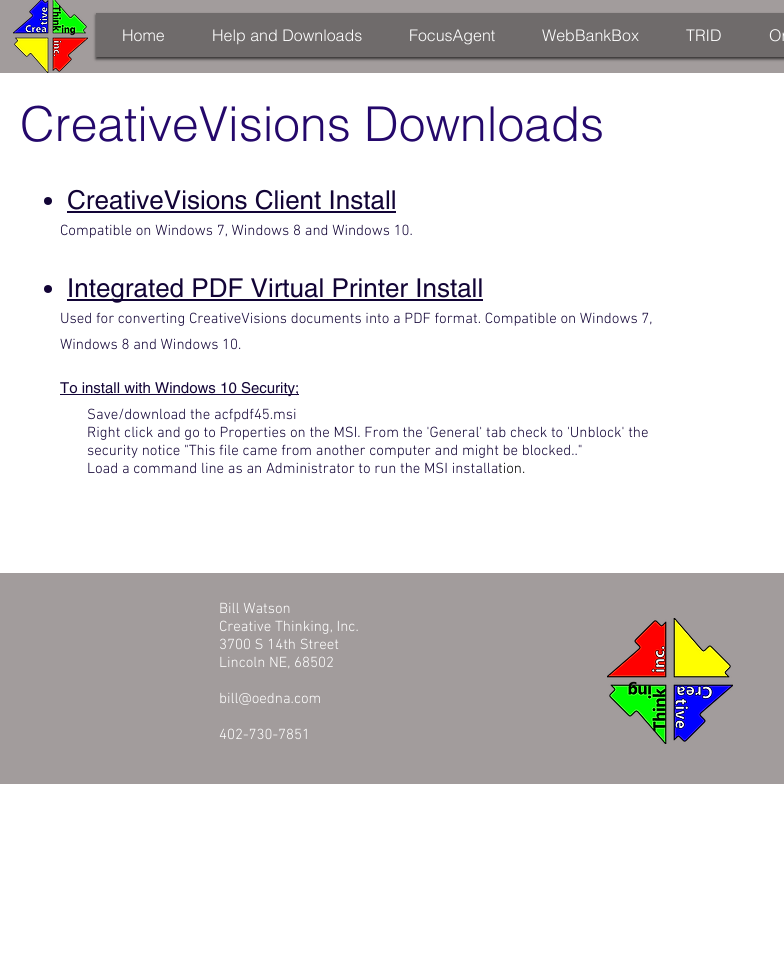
import math
import cairo

surface = cairo.ImageSurface(cairo.FORMAT_RGB24, 784, 976)
ctx = cairo.Context(surface)
options = cairo.FontOptions()
options.set_hint_metrics(cairo.HINT_METRICS_OFF)
options.set_hint_style(cairo.HINT_STYLE_NONE)
ctx.set_font_options(options)
ctx.set_miter_limit(4)


def round_rect(x, y, w, h, r):
    ctx.new_sub_path()
    for i, (u, v) in enumerate([(x + w - r, y + h - r), (x + r, y + h - r), (x + r, y + r), (x + w - r, y + r)]):
        ctx.arc(u, v, r, i * math.pi / 2, (i + 1) * math.pi / 2)
    ctx.close_path()


def shadow(x, y, w, h, r, blur, alpha):
    ctx.push_group_with_content(cairo.CONTENT_ALPHA)
    ctx.set_operator(cairo.OPERATOR_SOURCE)
    for i in range(15, -16, -2):
        e = blur * i / 6
        if min(w, h) + 2 * e > 0:
            ctx.set_source_rgba(0, 0, 0, alpha * math.erfc((i - 1) / 8.5) / 2)
            round_rect(x - e, y - e, w + 2 * e, h + 2 * e, max(0, min(r + e + blur * .6, min(w, h) / 2 + e)))
            ctx.fill()
    ctx.mask(ctx.pop_group())


def picture(path, x, y, w, h):
    ctx.save()
    ctx.set_source_surface(cairo.ImageSurface.create_from_png(path), x, y)
    ctx.rectangle(x, y, w, h)
    ctx.fill()
    ctx.restore()


ctx.set_source_rgb(1, 1, 1)
ctx.paint()
ctx.set_source_rgb(0.635, 0.612, 0.612)
ctx.rectangle(0, 0, 784, 73)
ctx.fill()
picture("img1.png", 13, 0, 75, 73)
ctx.set_source_rgb(0, 0, 0)
shadow(96, 15, 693, 44, 0, 1.5, 0.7)
ctx.set_source_rgb(0.435, 0.42, 0.42)
ctx.rectangle(96, 13, 688, 44)
ctx.fill()
ctx.select_font_face("helvetica Light")
ctx.set_font_size(16)
ctx.set_source_rgb(1, 1, 1)
ctx.move_to(122, 41)
ctx.show_text("Home")
ctx.move_to(212, 41)
ctx.show_text("Help and Downloads")
ctx.move_to(409, 41)
ctx.show_text("FocusAgent")
ctx.move_to(542, 41)
ctx.show_text("WebBankBox")
ctx.move_to(686, 41)
ctx.show_text("TRID")
ctx.move_to(769, 41)
ctx.show_text("Or")
ctx.set_font_size(48)
ctx.set_source_rgb(0.141, 0.035, 0.42)
ctx.move_to(20, 141)
ctx.show_text("CreativeVisions Downloads")
ctx.set_source_rgb(0.071, 0.016, 0.212)
ctx.new_path()
ctx.arc(48, 201, 4, 0, 2 * math.pi)
ctx.fill()
ctx.select_font_face("helvetica")
ctx.set_font_size(26)
ctx.move_to(67, 209)
ctx.show_text("CreativeVisions Client Install")
ctx.rectangle(67, 211, 329, 2)
ctx.fill()
ctx.select_font_face("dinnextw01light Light")
ctx.set_font_size(15)
ctx.move_to(60, 235)
ctx.show_text("Compatible on Windows 7, Windows 8 and Windows 10.")
ctx.new_path()
ctx.arc(48, 289, 4, 0, 2 * math.pi)
ctx.fill()
ctx.rectangle(67, 299, 416, 2)
ctx.fill()
ctx.select_font_face("helvetica")
ctx.set_font_size(26)
ctx.move_to(67, 297)
ctx.show_text("Integrated PDF Virtual Printer Install")
ctx.select_font_face("dinnextw01light Light")
ctx.set_font_size(15)
ctx.move_to(60, 323)
ctx.show_text("Used for converting CreativeVisions documents into a PDF format. Compatible on Windows 7,")
ctx.move_to(60, 349)
ctx.show_text("Windows 8 and Windows 10.")
ctx.rectangle(60, 394, 239, 1)
ctx.fill()
ctx.select_font_face("helvetica")
ctx.move_to(60, 393)
ctx.show_text("To install with Windows 10 Security;")
ctx.select_font_face("dinnextw01light Light")
ctx.move_to(87, 419)
ctx.show_text("Save/download the acfpdf45.msi")
ctx.move_to(87, 437)
ctx.show_text("Right click and go to Properties on the MSI. From the 'General' tab check to 'Unblock' the")
ctx.move_to(87, 455)
ctx.show_text("security notice \"This file came from another computer and might be blocked..\"")
ctx.move_to(87, 473)
ctx.show_text("Load a command line as an Administrator to run the MSI installa")
ctx.set_source_rgb(0.008, 0.008, 0.008)
ctx.move_to(498, 473)
ctx.show_text("tion.")
ctx.set_source_rgb(0.635, 0.612, 0.612)
ctx.rectangle(0, 573, 784, 211)
ctx.fill()
ctx.set_source_rgb(1, 1, 1)
ctx.move_to(219, 613)
ctx.show_text("Bill Watson")
ctx.move_to(219, 631)
ctx.show_text("Creative Thinking, Inc.")
ctx.move_to(219, 649)
ctx.show_text("3700 S 14th Street")
ctx.move_to(219, 667)
ctx.show_text("Lincoln NE, 68502")
ctx.move_to(219, 703)
ctx.show_text("bill@oedna.com")
ctx.move_to(219, 739)
ctx.show_text("402-730-7851")
picture("img2.png", 607, 618, 126, 126)
surface.write_to_png("page.png")
